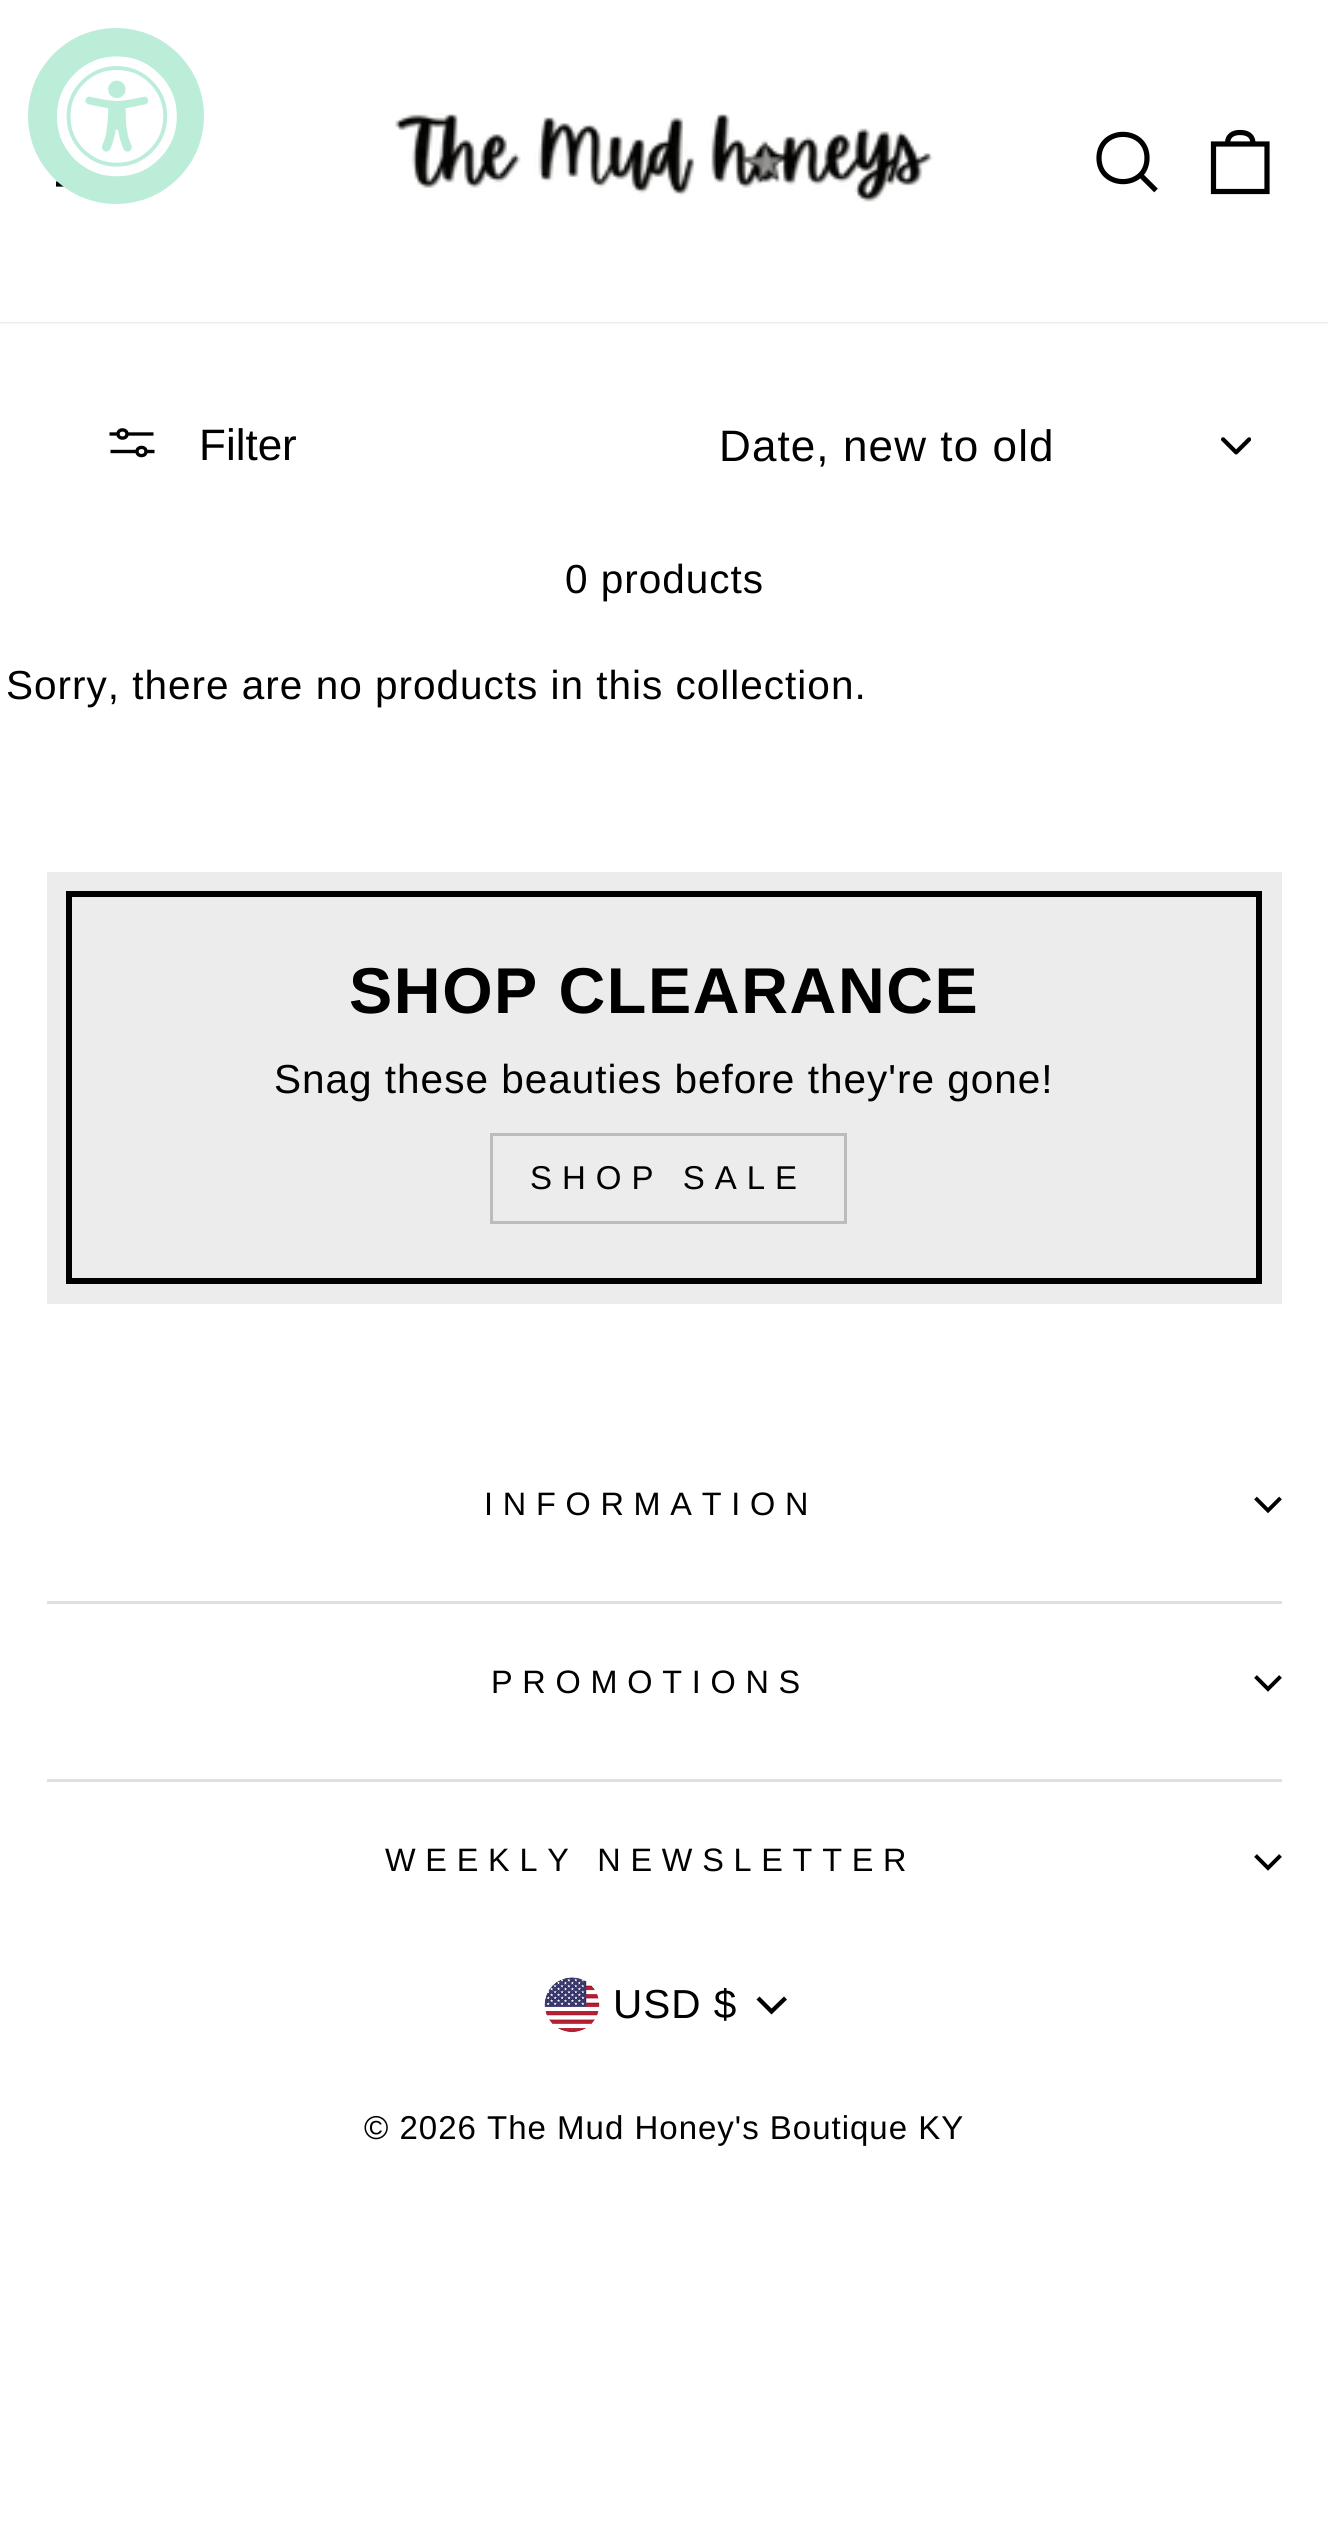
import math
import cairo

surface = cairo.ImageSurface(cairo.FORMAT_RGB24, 1328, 2545)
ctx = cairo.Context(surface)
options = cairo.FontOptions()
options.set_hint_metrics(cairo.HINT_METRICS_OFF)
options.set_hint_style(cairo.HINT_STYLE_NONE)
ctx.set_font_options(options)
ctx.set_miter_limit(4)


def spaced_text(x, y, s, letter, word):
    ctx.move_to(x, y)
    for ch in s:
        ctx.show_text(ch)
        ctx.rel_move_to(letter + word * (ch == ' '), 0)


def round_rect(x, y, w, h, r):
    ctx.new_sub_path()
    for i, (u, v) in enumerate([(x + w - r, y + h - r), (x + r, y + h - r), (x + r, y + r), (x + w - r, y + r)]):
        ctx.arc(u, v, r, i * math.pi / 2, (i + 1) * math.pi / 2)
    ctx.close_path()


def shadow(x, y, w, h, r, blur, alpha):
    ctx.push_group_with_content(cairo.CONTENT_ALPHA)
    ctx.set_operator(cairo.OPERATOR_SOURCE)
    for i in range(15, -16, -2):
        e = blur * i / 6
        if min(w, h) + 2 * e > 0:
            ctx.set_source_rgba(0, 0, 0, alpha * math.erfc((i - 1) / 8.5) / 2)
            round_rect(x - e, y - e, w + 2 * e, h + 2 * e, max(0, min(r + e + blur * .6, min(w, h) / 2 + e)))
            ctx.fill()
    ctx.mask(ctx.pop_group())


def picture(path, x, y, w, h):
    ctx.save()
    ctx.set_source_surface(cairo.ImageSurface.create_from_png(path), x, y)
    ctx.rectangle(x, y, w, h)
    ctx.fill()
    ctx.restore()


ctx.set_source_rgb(1, 1, 1)
ctx.paint()
ctx.set_source_rgb(0, 0, 0)
shadow(0, 0, 1328, 322, 0, 1.5, 0.2)
ctx.set_source_rgb(1, 1, 1)
ctx.rectangle(0, 0, 1328, 322)
ctx.fill()
ctx.new_path()
ctx.move_to(56, 140.5)
ctx.line_to(121.5, 140.5)
ctx.move_to(56, 162)
ctx.line_to(111, 162)
ctx.move_to(56, 184)
ctx.line_to(121.5, 184)
ctx.set_source_rgb(0, 0, 0)
ctx.set_line_width(5.2)
ctx.stroke()
ctx.set_source_rgb(0.733, 0.929, 0.851)
ctx.arc(116, 116, 88, 0, 2 * math.pi)
ctx.fill()
picture("img1.png", 57, 56, 120, 121)
picture("img2.png", 395, 112, 538, 90)
ctx.new_path()
ctx.move_to(1147, 158)
ctx.curve_to(1147, 189.5, 1099, 189.5, 1099, 158)
ctx.curve_to(1099, 126.5, 1147, 126.5, 1147, 158)
ctx.close_path()
ctx.move_to(1156, 190.5)
ctx.line_to(1140.5, 175)
ctx.set_source_rgb(0, 0, 0)
ctx.stroke()
ctx.new_path()
ctx.move_to(1213.5, 144)
ctx.line_to(1267, 144)
ctx.line_to(1267, 191.5)
ctx.line_to(1213.5, 191.5)
ctx.close_path()
ctx.stroke()
ctx.new_path()
ctx.move_to(1227.5, 144)
ctx.curve_to(1227.5, 135, 1233.5, 132.5, 1240, 132.5)
ctx.curve_to(1247, 132.5, 1253, 135, 1253, 144)
ctx.stroke()
ctx.new_path()
ctx.move_to(146, 451.5)
ctx.line_to(154.5, 451.5)
ctx.move_to(146, 451.5)
ctx.curve_to(146, 457, 137, 457, 137, 451.5)
ctx.curve_to(137, 446, 146, 446, 146, 451.5)
ctx.close_path()
ctx.move_to(110.5, 451.5)
ctx.line_to(137, 451.5)
ctx.move_to(118, 434)
ctx.line_to(109.5, 434)
ctx.move_to(118, 434)
ctx.curve_to(118, 428.5, 127, 428.5, 127, 434)
ctx.curve_to(127, 439.5, 118, 439.5, 118, 434)
ctx.close_path()
ctx.move_to(153.5, 434)
ctx.line_to(127, 434)
ctx.set_line_width(3.4)
ctx.stroke()
ctx.select_font_face("Arimo")
ctx.set_font_size(44)
ctx.move_to(199, 460)
ctx.show_text("Filter")
picture("img3.png", 1221, 437, 30, 18)
spaced_text(719, 461, "Date, new to old", 1.1, 0)
ctx.set_font_size(40.5)
spaced_text(565, 593, "0 products", 1, 0)
spaced_text(6, 699, "Sorry, there are no products in this collection.", 1, 0)
ctx.set_source_rgb(0.922, 0.922, 0.922)
ctx.rectangle(47, 872, 1235, 432)
ctx.fill()
ctx.rectangle(491.5, 1134.5, 354, 88)
ctx.set_source_rgb(0.737, 0.737, 0.737)
ctx.set_line_width(3)
ctx.stroke()
ctx.rectangle(69, 894, 1190, 387)
ctx.set_source_rgb(0, 0, 0)
ctx.set_line_width(6)
ctx.stroke()
ctx.select_font_face("Arimo", cairo.FONT_SLANT_NORMAL, cairo.FONT_WEIGHT_BOLD)
ctx.set_font_size(64.75)
spaced_text(349, 1013, "SHOP CLEARANCE", 1.6, 0)
ctx.select_font_face("Arimo")
ctx.set_font_size(40.5)
spaced_text(274, 1093, "Snag these beauties before they're gone!", 1, 0)
ctx.set_font_size(33)
spaced_text(530, 1189, "SHOP SALE", 10, 0)
ctx.set_font_size(32.4)
spaced_text(484, 1515, "INFORMATION", 9.75, 0)
ctx.new_path()
ctx.move_to(1255.5, 1498)
ctx.line_to(1268, 1510.5)
ctx.line_to(1280.5, 1498)
ctx.set_line_width(3.9)
ctx.stroke()
ctx.set_source_rgb(0.878, 0.878, 0.878)
ctx.rectangle(47, 1601, 1235, 3)
ctx.fill()
ctx.set_source_rgb(0, 0, 0)
spaced_text(491, 1693, "PROMOTIONS", 9.75, 0)
ctx.new_path()
ctx.move_to(1255.5, 1676.5)
ctx.line_to(1268, 1689)
ctx.line_to(1280.5, 1676.5)
ctx.stroke()
ctx.set_source_rgb(0.878, 0.878, 0.878)
ctx.rectangle(47, 1779, 1235, 3)
ctx.fill()
ctx.set_source_rgb(0, 0, 0)
spaced_text(385, 1871, "WEEKLY NEWSLETTER", 9.75, 0)
ctx.new_path()
ctx.move_to(1255.5, 1855.5)
ctx.line_to(1268, 1868)
ctx.line_to(1280.5, 1855.5)
ctx.stroke()
picture("img4.png", 544, 1977, 56, 56)
ctx.set_font_size(40.5)
spaced_text(613, 2018, "USD $", 1, 0)
ctx.new_path()
ctx.move_to(758, 1998)
ctx.line_to(771.5, 2011.5)
ctx.line_to(785.5, 1998)
ctx.set_line_width(4.3)
ctx.stroke()
ctx.set_font_size(33)
spaced_text(364, 2139, "© 2026 The Mud Honey's Boutique KY", 1, 0)
surface.write_to_png("page.png")
